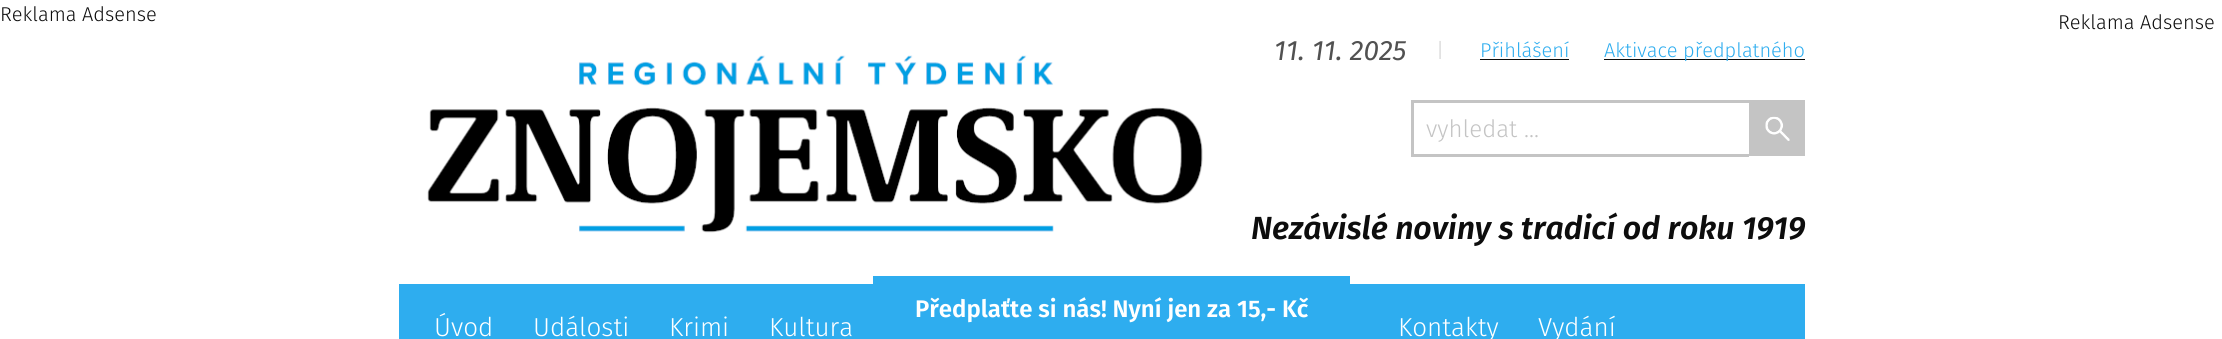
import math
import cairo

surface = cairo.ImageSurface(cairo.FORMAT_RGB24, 2222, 339)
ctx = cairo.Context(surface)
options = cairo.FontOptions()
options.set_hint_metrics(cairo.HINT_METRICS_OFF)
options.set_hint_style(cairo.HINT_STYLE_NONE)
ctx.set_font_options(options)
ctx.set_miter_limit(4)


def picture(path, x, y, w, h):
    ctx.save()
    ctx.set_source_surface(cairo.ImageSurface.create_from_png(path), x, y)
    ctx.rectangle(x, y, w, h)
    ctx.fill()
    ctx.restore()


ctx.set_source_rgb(1, 1, 1)
ctx.paint()
ctx.select_font_face("Fira Sans Light")
ctx.set_font_size(20)
ctx.set_source_rgb(0.051, 0.051, 0.051)
ctx.move_to(0, 21)
ctx.show_text("Reklama Adsense")
ctx.move_to(2058, 29)
ctx.show_text("Reklama Adsense")
picture("img1.png", 427, 55, 776, 178)
ctx.select_font_face("Fira Sans", cairo.FONT_SLANT_ITALIC)
ctx.set_font_size(28)
ctx.set_source_rgb(0.318, 0.318, 0.318)
ctx.move_to(1274, 60)
ctx.show_text("11. 11. 2025")
ctx.select_font_face("Fira Sans Light")
ctx.set_font_size(20)
ctx.set_source_rgb(0.812, 0.812, 0.812)
ctx.move_to(1436, 57)
ctx.show_text("|")
ctx.set_source_rgb(0.18, 0.678, 0.937)
ctx.move_to(1480, 57)
ctx.show_text("Přihlášení")
ctx.set_source_rgb(0.051, 0.051, 0.051)
ctx.rectangle(1480, 59, 89, 1)
ctx.fill()
ctx.rectangle(1604, 59, 201, 1)
ctx.fill()
ctx.set_source_rgb(0.18, 0.678, 0.937)
ctx.move_to(1604, 57)
ctx.show_text("Aktivace předplatného")
ctx.set_source_rgb(0.769, 0.769, 0.769)
ctx.rectangle(1411, 100, 338, 3)
ctx.fill()
ctx.rectangle(1411, 154, 338, 3)
ctx.fill()
ctx.rectangle(1411, 100, 3, 56)
ctx.fill()
ctx.set_font_size(24)
ctx.move_to(1426, 137)
ctx.show_text("vyhledat ...")
ctx.rectangle(1749, 100, 56, 56)
ctx.fill()
picture("img2.png", 1765, 116, 25, 25)
ctx.select_font_face("Fira Sans SemiBold", cairo.FONT_SLANT_ITALIC)
ctx.set_font_size(32)
ctx.set_source_rgb(0.051, 0.051, 0.051)
ctx.move_to(1251, 239)
ctx.show_text("Nezávislé noviny s tradicí od roku 1919")
ctx.set_source_rgb(0.18, 0.678, 0.937)
ctx.rectangle(399, 284, 1406, 55)
ctx.fill()
ctx.select_font_face("Fira Sans Light")
ctx.set_font_size(26)
ctx.set_source_rgb(1, 1, 1)
ctx.move_to(434, 336)
ctx.show_text("Úvod")
ctx.move_to(533, 336)
ctx.show_text("Události")
ctx.move_to(669, 336)
ctx.show_text("Krimi")
ctx.move_to(769, 336)
ctx.show_text("Kultura")
ctx.move_to(1398, 336)
ctx.show_text("Kontakty")
ctx.move_to(1538, 336)
ctx.show_text("Vydání")
ctx.select_font_face("Fira Sans SemiBold")
ctx.set_font_size(24)
ctx.move_to(915, 317)
ctx.show_text("Předplaťte si nás! Nyní jen za 15,- Kč")
ctx.set_source_rgb(0.18, 0.678, 0.937)
ctx.rectangle(873, 276, 477, 8)
ctx.fill()
surface.write_to_png("page.png")
